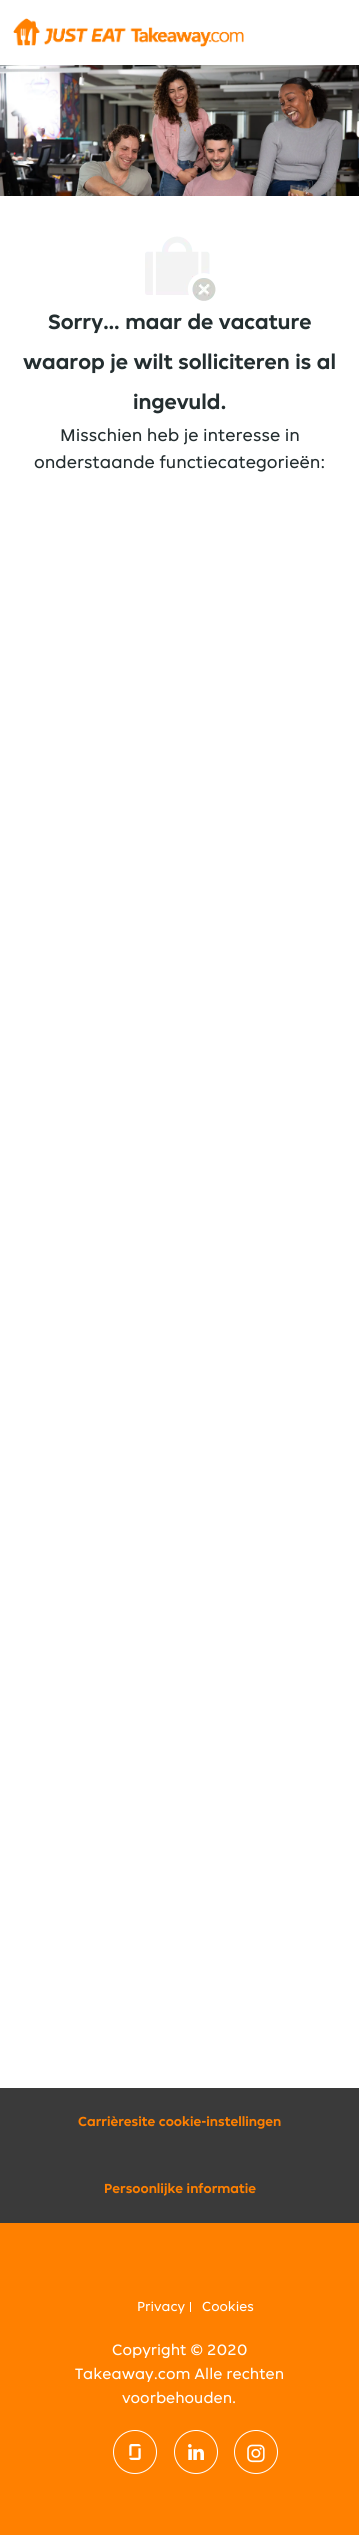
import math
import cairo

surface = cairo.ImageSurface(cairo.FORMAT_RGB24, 359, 2535)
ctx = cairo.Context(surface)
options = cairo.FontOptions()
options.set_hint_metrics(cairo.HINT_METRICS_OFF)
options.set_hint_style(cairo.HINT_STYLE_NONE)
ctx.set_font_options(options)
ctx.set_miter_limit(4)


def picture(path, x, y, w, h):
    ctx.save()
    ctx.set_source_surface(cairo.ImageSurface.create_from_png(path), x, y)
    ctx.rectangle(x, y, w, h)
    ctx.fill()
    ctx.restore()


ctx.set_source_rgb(1, 1, 1)
ctx.paint()
picture("img1.png", 13, 18, 231, 29)
picture("img2.png", 0, 65, 359, 131)
picture("img3.png", 145, 236, 71, 65)
ctx.select_font_face("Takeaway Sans", cairo.FONT_SLANT_NORMAL, cairo.FONT_WEIGHT_BOLD)
ctx.set_font_size(22)
ctx.set_source_rgb(0.141, 0.18, 0.188)
ctx.move_to(48, 329)
ctx.show_text("Sorry… maar de vacature")
ctx.move_to(23, 369)
ctx.show_text("waarop je wilt solliciteren is al")
ctx.move_to(133, 409)
ctx.show_text("ingevuld.")
ctx.select_font_face("Takeaway Sans")
ctx.set_font_size(18)
ctx.move_to(60, 441)
ctx.show_text("Misschien heb je interesse in")
ctx.move_to(34, 468)
ctx.show_text("onderstaande functiecategorieën:")
ctx.set_source_rgb(0.227, 0.227, 0.227)
ctx.rectangle(0, 2088, 359, 135)
ctx.fill()
ctx.select_font_face("Takeaway Sans", cairo.FONT_SLANT_NORMAL, cairo.FONT_WEIGHT_BOLD)
ctx.set_font_size(14)
ctx.set_source_rgb(1, 0.502, 0)
ctx.move_to(78, 2126)
ctx.show_text("Carrièresite cookie-instellingen")
ctx.move_to(104, 2193)
ctx.show_text("Persoonlijke informatie")
ctx.rectangle(0, 2223, 359, 312)
ctx.fill()
ctx.select_font_face("Takeaway Sans")
ctx.set_source_rgb(1, 1, 1)
ctx.move_to(137, 2311)
ctx.show_text("Privacy")
ctx.rectangle(190, 2302, 1, 10)
ctx.fill()
ctx.move_to(202, 2311)
ctx.show_text("Cookies")
ctx.set_font_size(16)
ctx.move_to(112, 2355)
ctx.show_text("Copyright © 2020")
ctx.move_to(75, 2379)
ctx.show_text("Takeaway.com Alle rechten")
ctx.move_to(122, 2403)
ctx.show_text("voorbehouden.")
ctx.new_path()
ctx.arc(135, 2452, 21.5, 0, 2 * math.pi)
ctx.set_line_width(1)
ctx.stroke()
picture("img4.png", 129, 2444, 12, 16)
ctx.arc(196, 2452, 21.5, 0, 2 * math.pi)
ctx.stroke()
picture("img5.png", 188, 2444, 16, 16)
ctx.arc(256, 2452, 21.5, 0, 2 * math.pi)
ctx.stroke()
picture("img6.png", 247, 2444, 18, 19)
surface.write_to_png("page.png")
